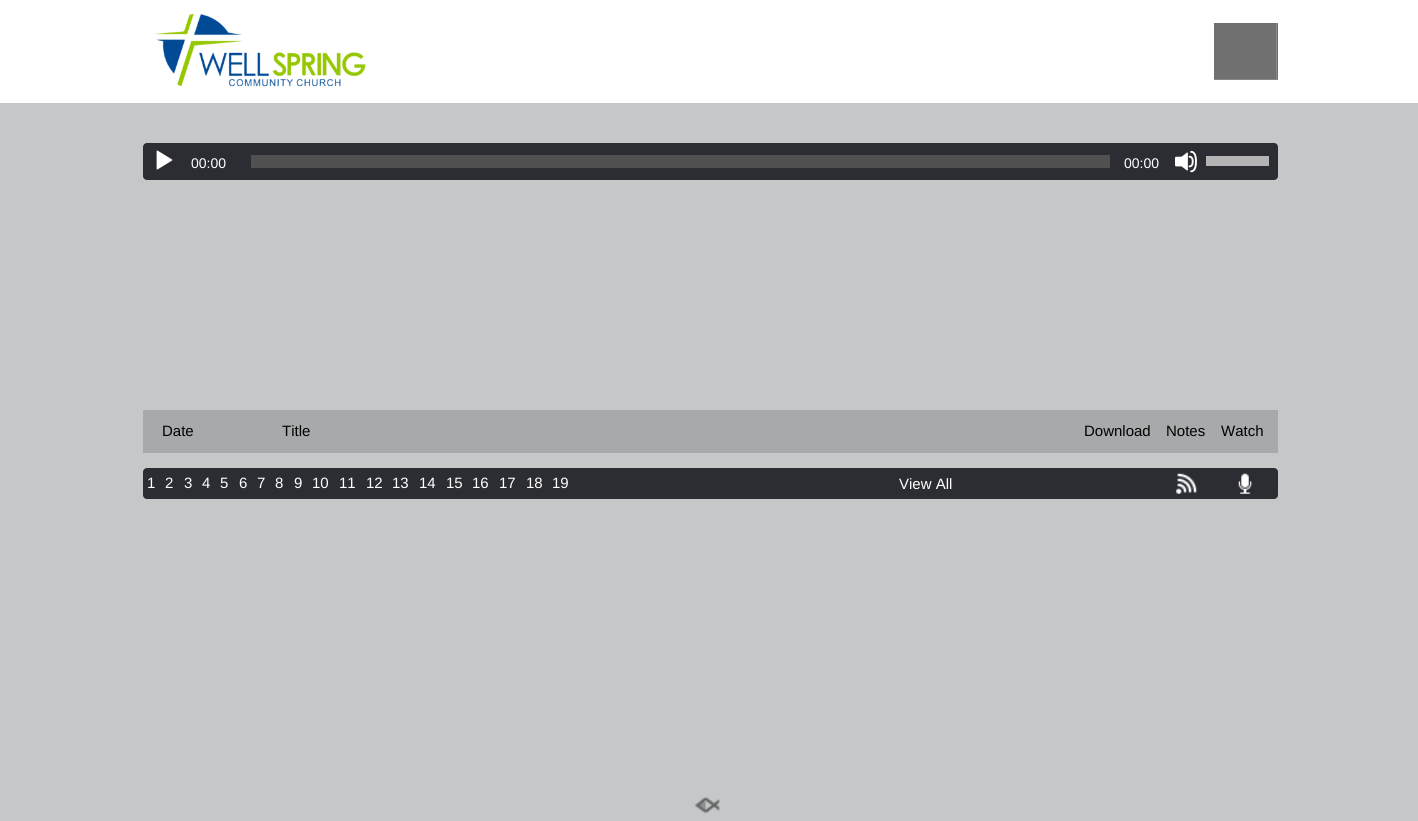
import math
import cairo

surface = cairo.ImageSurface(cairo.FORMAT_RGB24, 1418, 821)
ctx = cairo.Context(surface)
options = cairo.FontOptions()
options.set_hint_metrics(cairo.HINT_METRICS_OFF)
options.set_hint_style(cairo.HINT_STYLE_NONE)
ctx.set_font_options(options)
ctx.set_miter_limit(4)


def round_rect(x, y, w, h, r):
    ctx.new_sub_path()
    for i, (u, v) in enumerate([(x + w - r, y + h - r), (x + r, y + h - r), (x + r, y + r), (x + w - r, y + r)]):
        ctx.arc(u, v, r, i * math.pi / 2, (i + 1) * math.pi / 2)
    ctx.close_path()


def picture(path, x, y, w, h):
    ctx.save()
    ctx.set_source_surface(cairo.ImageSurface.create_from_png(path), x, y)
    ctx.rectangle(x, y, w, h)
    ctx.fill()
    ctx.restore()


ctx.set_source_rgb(0.776, 0.78, 0.784)
ctx.paint()
ctx.set_source_rgb(1, 1, 1)
ctx.rectangle(0, 0, 1418, 103)
ctx.fill()
picture("img1.png", 154, 13, 212, 74)
ctx.set_source_rgb(0.439, 0.439, 0.439)
ctx.rectangle(1214, 23, 64, 56)
ctx.fill()
ctx.set_source_rgb(0.533, 0.533, 0.533)
ctx.rectangle(1276, 23, 1, 57)
ctx.fill()
ctx.rectangle(1214, 79, 64, 1)
ctx.fill()
ctx.set_source_rgb(0.173, 0.176, 0.2)
round_rect(143, 143, 1135, 37, 4)
ctx.fill()
picture("img2.png", 156, 150, 17, 20)
ctx.select_font_face("Liberation Sans")
ctx.set_font_size(14)
ctx.set_source_rgb(1, 1, 1)
ctx.move_to(191, 168)
ctx.show_text("00:00")
ctx.set_source_rgb(0.314, 0.314, 0.314)
ctx.rectangle(251, 155, 859, 13)
ctx.fill()
ctx.set_source_rgb(1, 1, 1)
ctx.move_to(1124, 168)
ctx.show_text("00:00")
picture("img3.png", 1175, 150, 22, 23)
ctx.set_source_rgb(0.706, 0.706, 0.706)
ctx.rectangle(1206, 156, 63, 10)
ctx.fill()
ctx.set_source_rgb(0.659, 0.663, 0.667)
ctx.rectangle(143, 410, 1135, 43)
ctx.fill()
ctx.set_font_size(15)
ctx.set_source_rgb(0, 0, 0)
ctx.move_to(162, 436)
ctx.show_text("Date")
ctx.move_to(282, 436)
ctx.show_text("Title")
ctx.move_to(1084, 436)
ctx.show_text("Download")
ctx.move_to(1166, 436)
ctx.show_text("Notes")
ctx.move_to(1221, 436)
ctx.show_text("Watch")
ctx.set_source_rgb(0.173, 0.176, 0.2)
round_rect(143, 468, 1135, 31, 4)
ctx.fill()
ctx.set_source_rgb(1, 1, 1)
ctx.move_to(147, 488)
ctx.show_text("1")
ctx.move_to(165, 488)
ctx.show_text("2")
ctx.move_to(184, 488)
ctx.show_text("3")
ctx.move_to(202, 488)
ctx.show_text("4")
ctx.move_to(220, 488)
ctx.show_text("5")
ctx.move_to(239, 488)
ctx.show_text("6")
ctx.move_to(257, 488)
ctx.show_text("7")
ctx.move_to(275, 488)
ctx.show_text("8")
ctx.move_to(294, 488)
ctx.show_text("9")
ctx.move_to(312, 488)
ctx.show_text("10")
ctx.move_to(339, 488)
ctx.show_text("11")
ctx.move_to(366, 488)
ctx.show_text("12")
ctx.move_to(392, 488)
ctx.show_text("13")
ctx.move_to(419, 488)
ctx.show_text("14")
ctx.move_to(446, 488)
ctx.show_text("15")
ctx.move_to(472, 488)
ctx.show_text("16")
ctx.move_to(499, 488)
ctx.show_text("17")
ctx.move_to(526, 488)
ctx.show_text("18")
ctx.move_to(552, 488)
ctx.show_text("19")
ctx.move_to(899, 489)
ctx.show_text("View All")
picture("img4.png", 1176, 473, 21, 21)
picture("img5.png", 1238, 473, 14, 21)
picture("img6.png", 694, 797, 26, 17)
surface.write_to_png("page.png")
